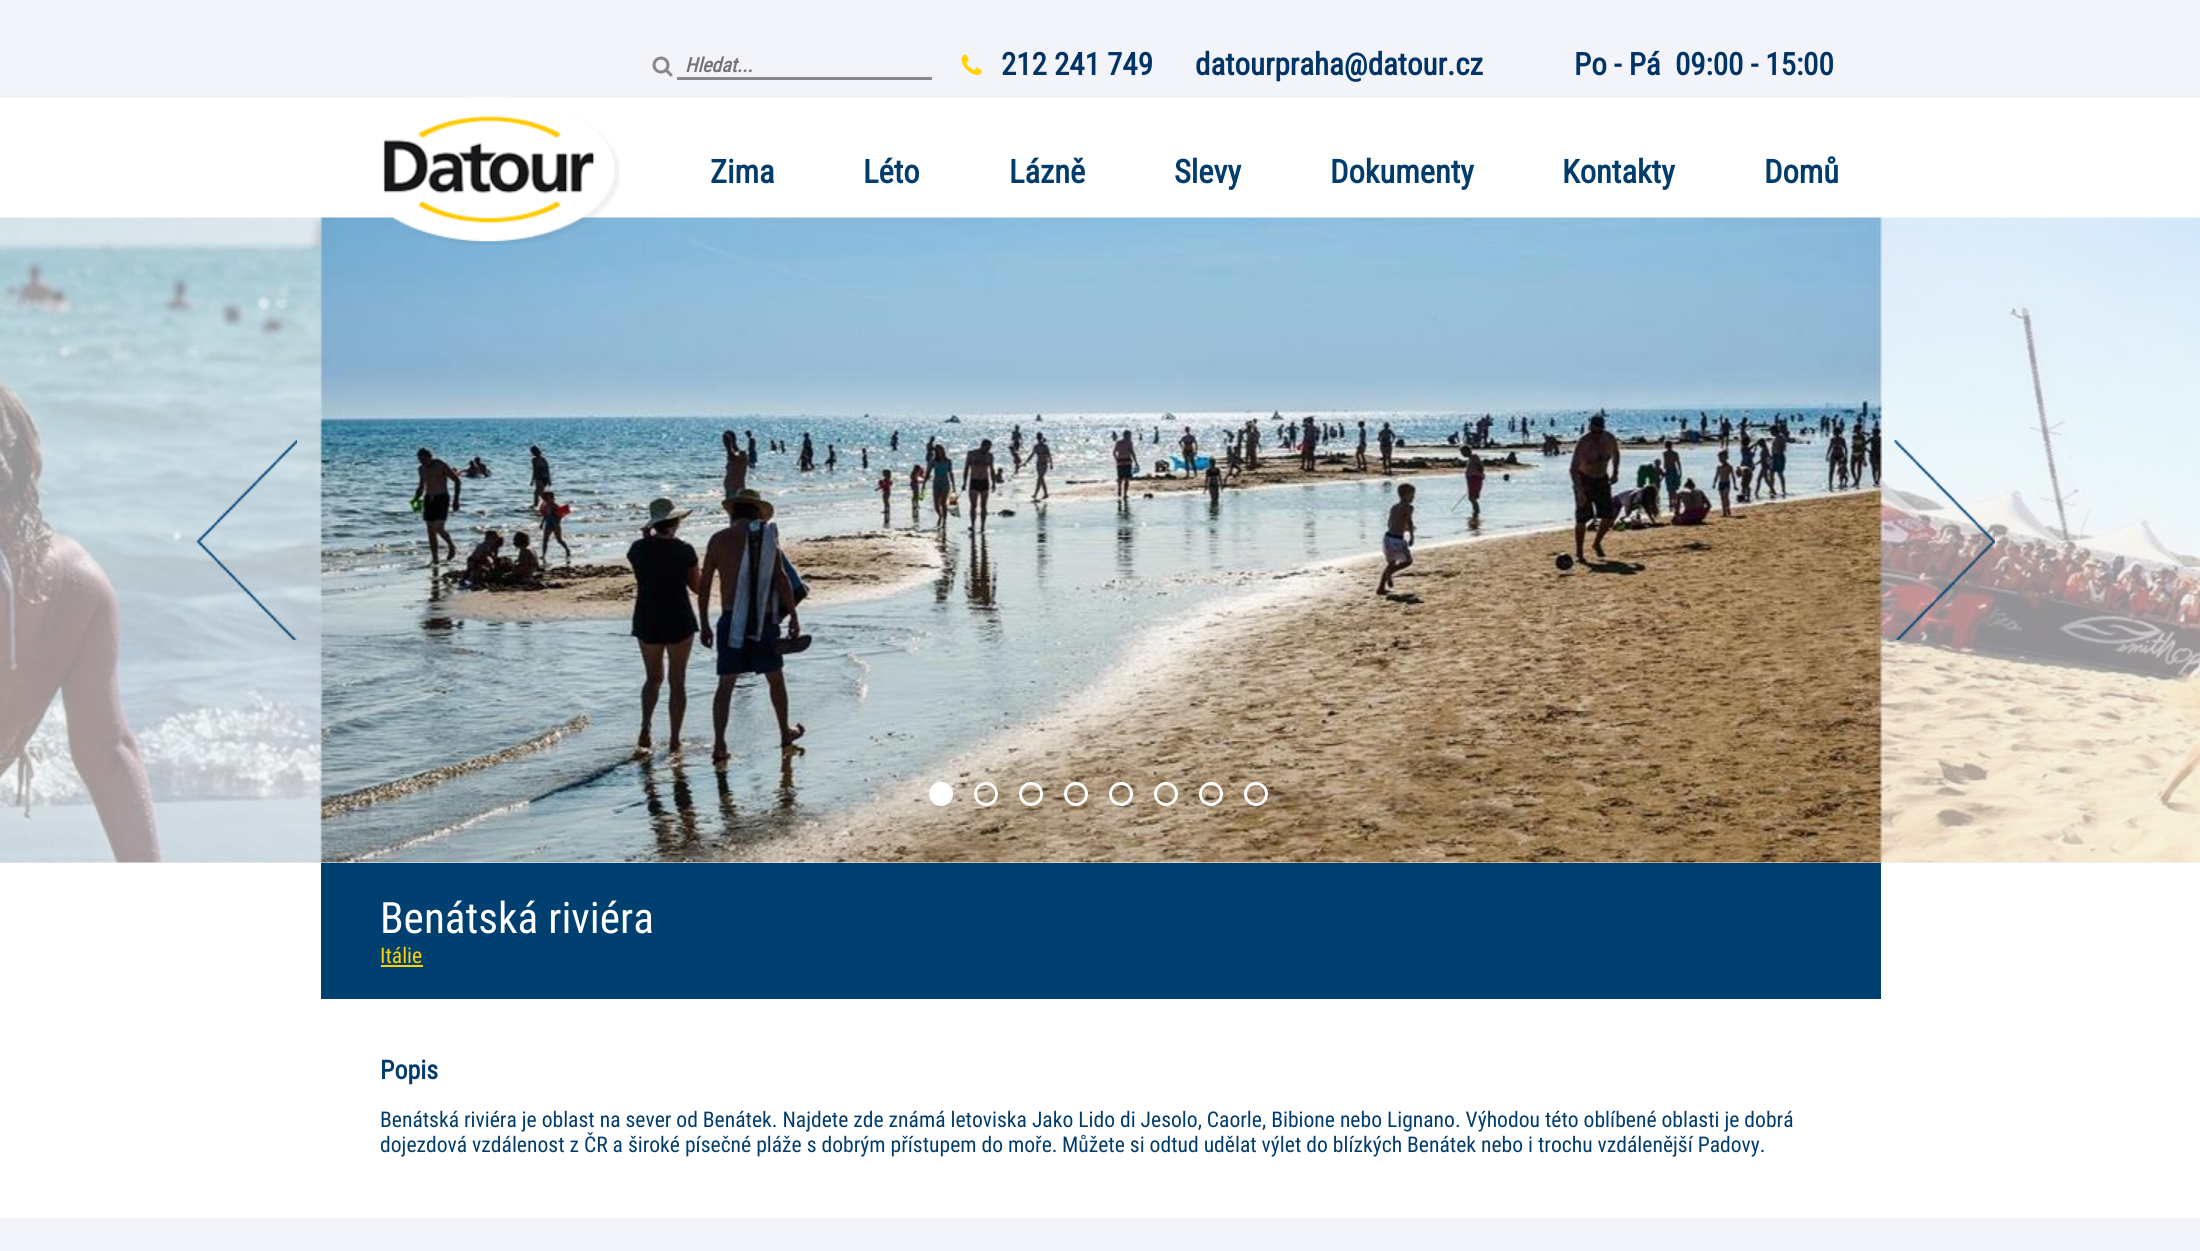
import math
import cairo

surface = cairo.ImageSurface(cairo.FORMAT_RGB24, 2200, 1251)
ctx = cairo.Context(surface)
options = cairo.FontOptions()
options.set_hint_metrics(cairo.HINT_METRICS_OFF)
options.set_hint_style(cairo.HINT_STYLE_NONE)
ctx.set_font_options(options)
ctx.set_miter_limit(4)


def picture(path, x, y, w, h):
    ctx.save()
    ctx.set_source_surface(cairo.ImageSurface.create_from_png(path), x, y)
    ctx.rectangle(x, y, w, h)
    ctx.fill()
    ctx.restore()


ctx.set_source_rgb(0.953, 0.957, 0.973)
ctx.paint()
picture("img1.png", 652, 56, 21, 21)
ctx.set_source_rgb(0.537, 0.537, 0.545)
ctx.rectangle(677, 77, 255, 3)
ctx.fill()
ctx.select_font_face("Roboto Condensed", cairo.FONT_SLANT_ITALIC, cairo.FONT_WEIGHT_BOLD)
ctx.set_font_size(20)
ctx.set_source_rgb(0.459, 0.459, 0.459)
ctx.move_to(685, 72)
ctx.show_text("Hledat...")
picture("img2.png", 961, 54, 21, 21)
ctx.select_font_face("Roboto Condensed", cairo.FONT_SLANT_NORMAL, cairo.FONT_WEIGHT_BOLD)
ctx.set_font_size(31)
ctx.set_source_rgb(0, 0.2, 0.4)
ctx.move_to(1001, 75)
ctx.show_text("212 241 749")
ctx.move_to(1195, 75)
ctx.show_text("datourpraha@datour.cz")
ctx.move_to(1574, 75)
ctx.show_text("Po - Pá  09:00 - 15:00")
ctx.set_source_rgb(1, 1, 1)
ctx.rectangle(0, 98, 2200, 120)
ctx.fill()
picture("img5.png", 320, 217, 1562, 646)
picture("img3.png", 383, 97, 237, 148)
ctx.set_font_size(32.5)
ctx.set_source_rgb(0.008, 0.235, 0.424)
ctx.move_to(710, 183)
ctx.show_text("Zima")
ctx.move_to(863, 183)
ctx.show_text("Léto")
ctx.move_to(1009, 183)
ctx.show_text("Lázně")
ctx.move_to(1174, 183)
ctx.show_text("Slevy")
ctx.move_to(1330, 183)
ctx.show_text("Dokumenty")
ctx.move_to(1562, 183)
ctx.show_text("Kontakty")
ctx.move_to(1764, 183)
ctx.show_text("Domů")
picture("img4.png", 0, 217, 322, 646)
picture("img6.png", 1880, 217, 320, 646)
picture("img7.png", 196, 440, 101, 200)
picture("img8.png", 1894, 440, 101, 200)
ctx.set_source_rgb(1, 1, 1)
ctx.arc(941, 794, 10.5, 0, 2 * math.pi)
ctx.fill_preserve()
ctx.set_line_width(3)
ctx.stroke()
ctx.arc(986, 794, 10.5, 0, 2 * math.pi)
ctx.stroke()
ctx.arc(1031, 794, 10.5, 0, 2 * math.pi)
ctx.stroke()
ctx.arc(1076, 794, 10.5, 0, 2 * math.pi)
ctx.stroke()
ctx.arc(1121, 794, 10.5, 0, 2 * math.pi)
ctx.stroke()
ctx.arc(1166, 794, 10.5, 0, 2 * math.pi)
ctx.stroke()
ctx.arc(1211, 794, 10.5, 0, 2 * math.pi)
ctx.stroke()
ctx.arc(1256, 794, 10.5, 0, 2 * math.pi)
ctx.stroke()
ctx.rectangle(0, 863, 2200, 355)
ctx.fill()
ctx.set_source_rgb(0, 0.251, 0.443)
ctx.rectangle(321, 863, 1560, 136)
ctx.fill()
ctx.select_font_face("Roboto Condensed")
ctx.set_font_size(43.25)
ctx.set_source_rgb(1, 1, 1)
ctx.move_to(380, 933)
ctx.show_text("Benátská riviéra")
ctx.set_font_size(21.6)
ctx.set_source_rgb(1, 0.824, 0)
ctx.move_to(380, 963)
ctx.show_text("Itálie")
ctx.rectangle(381, 965, 42, 2)
ctx.fill()
ctx.select_font_face("Roboto Condensed", cairo.FONT_SLANT_NORMAL, cairo.FONT_WEIGHT_BOLD)
ctx.set_font_size(26)
ctx.set_source_rgb(0.008, 0.235, 0.424)
ctx.move_to(380, 1079)
ctx.show_text("Popis")
ctx.select_font_face("Roboto Condensed")
ctx.set_font_size(21.6)
ctx.move_to(380, 1127)
ctx.show_text("Benátská riviéra je oblast na sever od Benátek. Najdete zde známá letoviska Jako Lido di Jesolo, Caorle, Bibione nebo Lignano. Výhodou této oblíbené oblasti je dobrá")
ctx.move_to(380, 1152)
ctx.show_text("dojezdová vzdálenost z ČR a široké písečné pláže s dobrým přístupem do moře.")
ctx.move_to(1062, 1152)
ctx.show_text("Můžete si odtud udělat výlet do blízkých Benátek nebo i trochu vzdálenější Padovy.")
surface.write_to_png("page.png")
